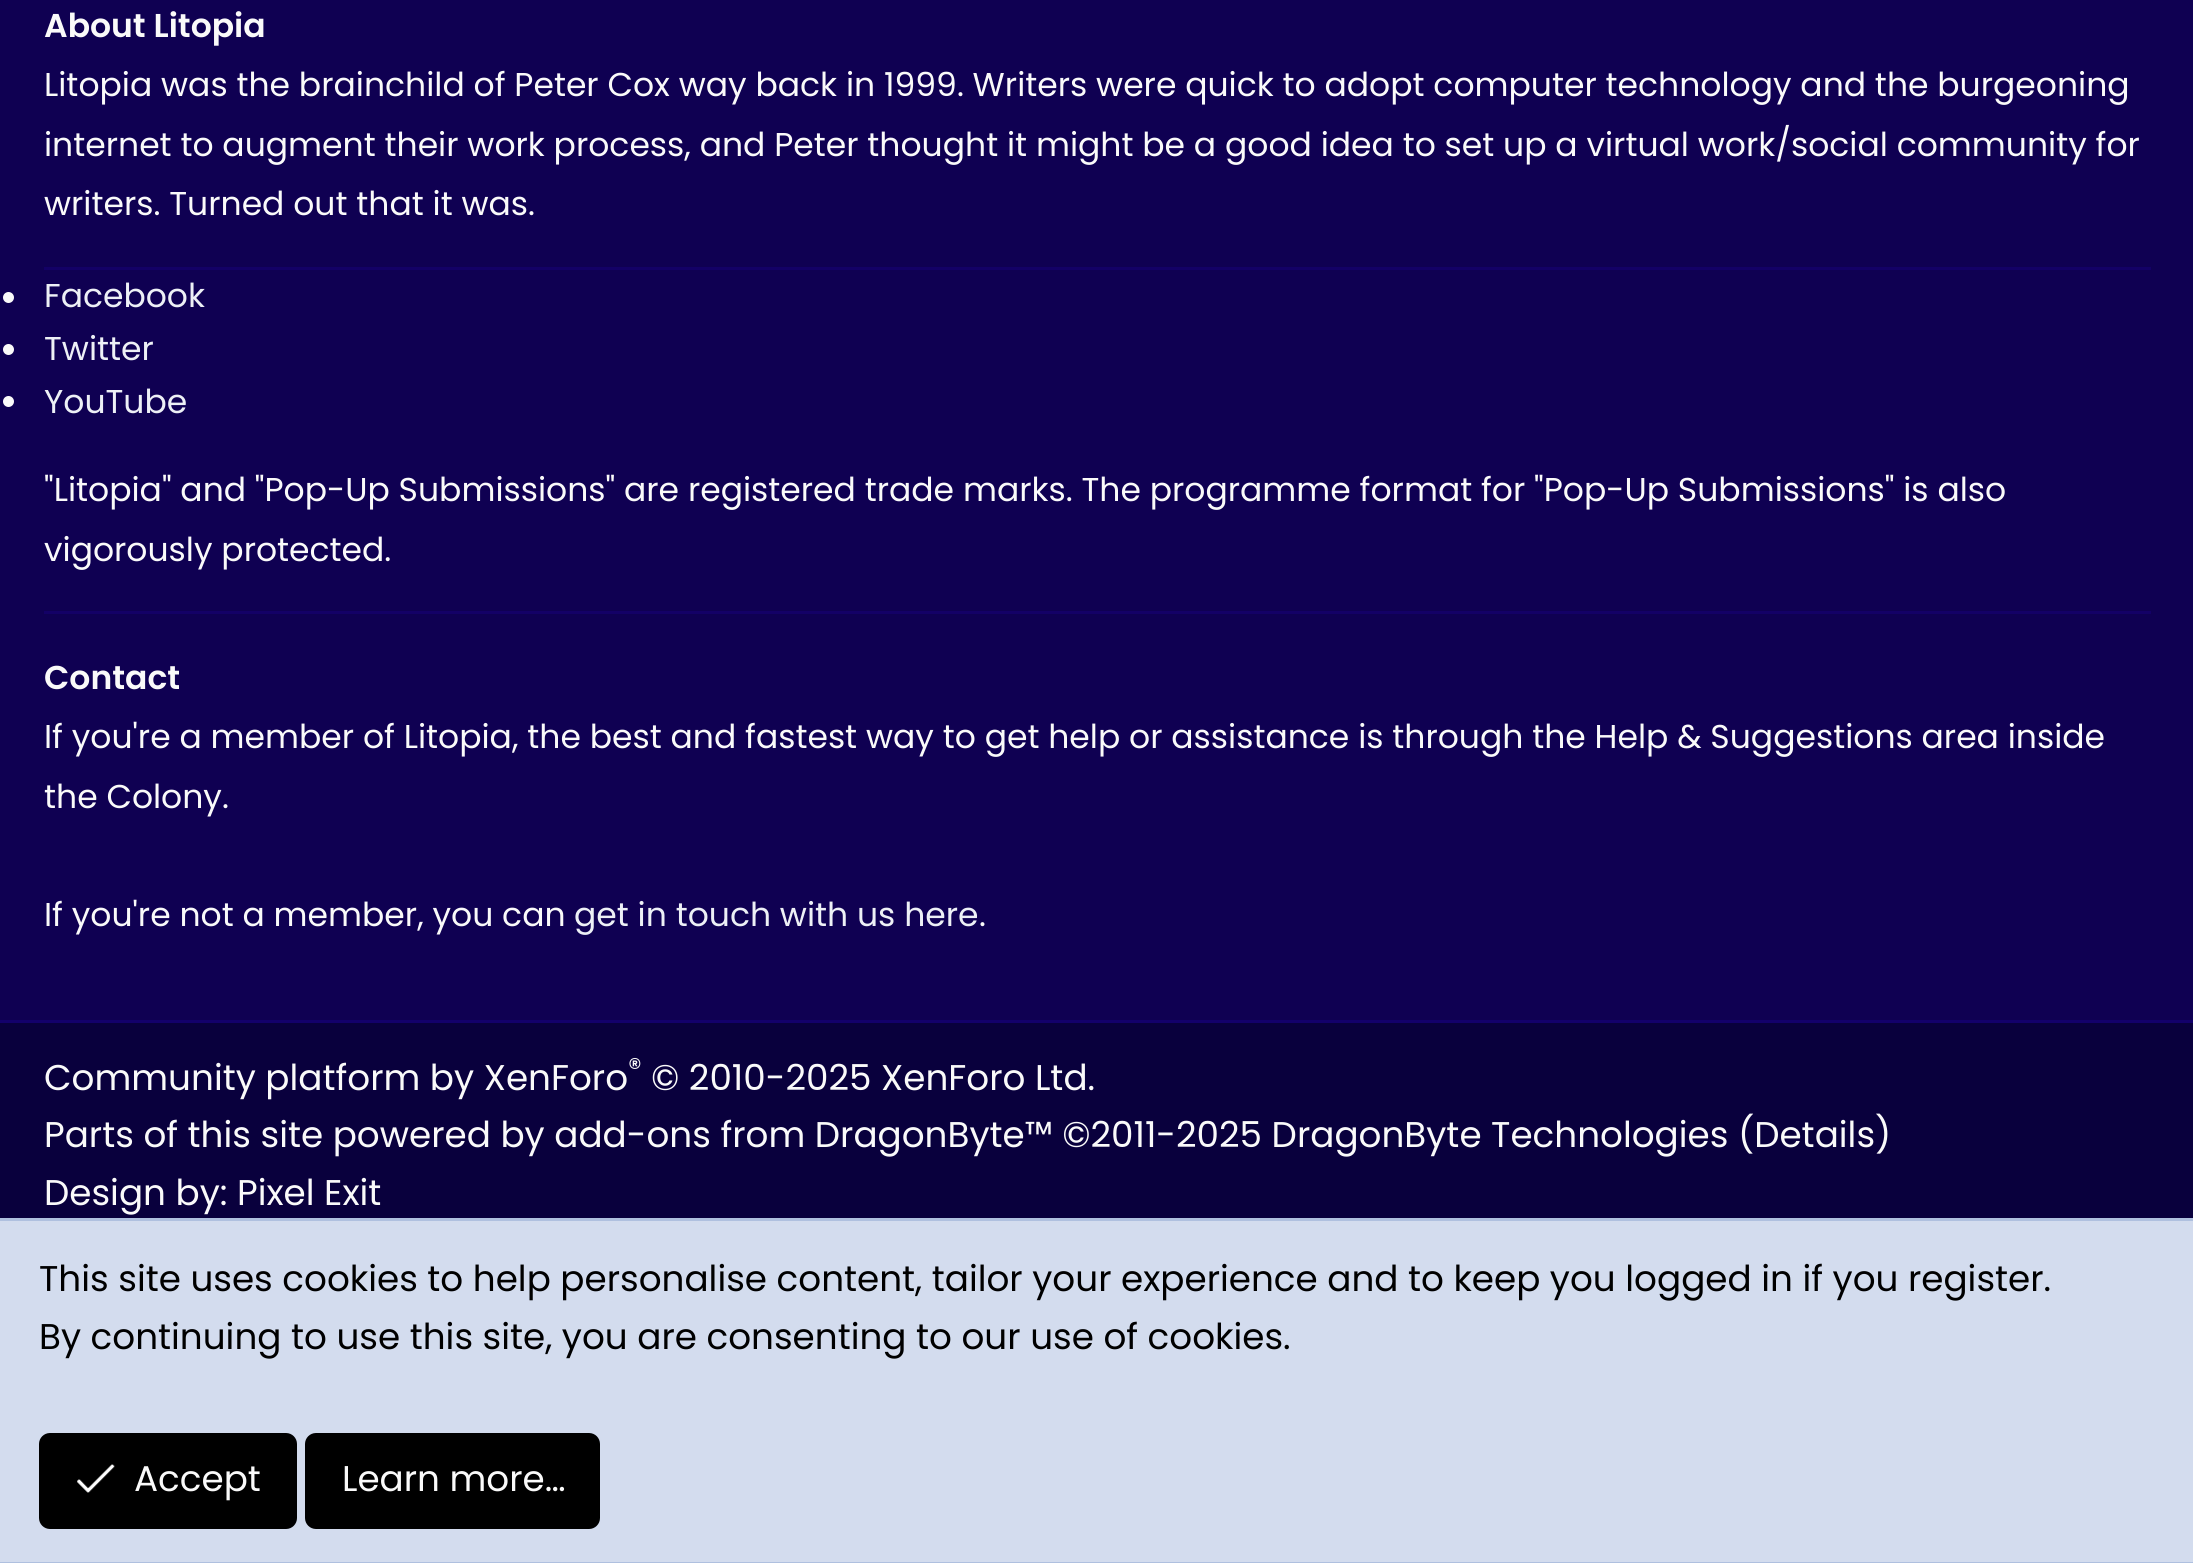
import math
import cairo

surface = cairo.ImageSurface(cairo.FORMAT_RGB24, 2193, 1563)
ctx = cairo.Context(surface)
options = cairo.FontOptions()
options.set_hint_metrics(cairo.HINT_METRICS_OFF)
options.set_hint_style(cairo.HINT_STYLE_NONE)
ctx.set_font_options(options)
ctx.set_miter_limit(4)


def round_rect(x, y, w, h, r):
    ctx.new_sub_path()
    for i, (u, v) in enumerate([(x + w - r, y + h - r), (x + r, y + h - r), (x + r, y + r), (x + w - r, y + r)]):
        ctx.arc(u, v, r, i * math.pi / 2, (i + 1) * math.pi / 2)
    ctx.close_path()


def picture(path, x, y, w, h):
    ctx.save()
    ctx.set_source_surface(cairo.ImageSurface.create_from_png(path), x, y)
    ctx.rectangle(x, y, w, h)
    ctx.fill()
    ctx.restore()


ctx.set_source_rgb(0.059, 0, 0.322)
ctx.paint()
ctx.set_source_rgb(0.075, 0, 0.4)
ctx.rectangle(44, 267, 2107, 3)
ctx.fill()
ctx.select_font_face("Poppins SemiBold")
ctx.set_font_size(33)
ctx.set_source_rgb(0.98, 0.98, 0.98)
ctx.move_to(44, 37)
ctx.show_text("About Litopia")
ctx.select_font_face("Poppins")
ctx.move_to(44, 96)
ctx.show_text("Litopia was the brainchild of Peter Cox way back in 1999. Writers were quick to adopt computer technology and the burgeoning")
ctx.move_to(44, 156)
ctx.show_text("internet to augment their work process, and Peter thought it might be a good idea to set up a virtual work/social community for")
ctx.move_to(44, 215)
ctx.show_text("writers. Turned out that it was.")
ctx.set_source_rgb(0.075, 0, 0.4)
ctx.rectangle(44, 611, 2107, 3)
ctx.fill()
ctx.set_source_rgb(0.98, 0.98, 0.98)
ctx.arc(8.5, 297.5, 5.5, 0, 2 * math.pi)
ctx.fill()
ctx.set_source_rgb(0.929, 0.941, 0.961)
ctx.move_to(44, 307)
ctx.show_text("Facebook")
ctx.set_source_rgb(0.98, 0.98, 0.98)
ctx.new_path()
ctx.arc(8.5, 349.5, 5.5, 0, 2 * math.pi)
ctx.fill()
ctx.set_source_rgb(0.929, 0.941, 0.961)
ctx.move_to(44, 360)
ctx.show_text("Twitter")
ctx.set_source_rgb(0.98, 0.98, 0.98)
ctx.new_path()
ctx.arc(8.5, 401.5, 5.5, 0, 2 * math.pi)
ctx.fill()
ctx.set_source_rgb(0.929, 0.941, 0.961)
ctx.move_to(44, 413)
ctx.show_text("YouTube")
ctx.set_source_rgb(0.98, 0.98, 0.98)
ctx.move_to(44, 501)
ctx.show_text("\"Litopia\" and \"Pop-Up Submissions\" are registered trade marks. The programme format for \"Pop-Up Submissions\" is also")
ctx.move_to(44, 561)
ctx.show_text("vigorously protected.")
ctx.select_font_face("Poppins SemiBold")
ctx.move_to(44, 689)
ctx.show_text("Contact")
ctx.select_font_face("Poppins")
ctx.move_to(44, 748)
ctx.show_text("If you're a member of Litopia, the best and fastest way to get help or assistance is through the Help & Suggestions area inside")
ctx.move_to(44, 808)
ctx.show_text("the Colony.")
ctx.move_to(44, 926)
ctx.show_text("If you're not a member, you can")
ctx.set_source_rgb(0.929, 0.941, 0.961)
ctx.move_to(574, 926)
ctx.show_text("get in touch with us here")
ctx.set_source_rgb(0.98, 0.98, 0.98)
ctx.move_to(979, 926)
ctx.show_text(".")
ctx.set_source_rgb(0.039, 0, 0.239)
ctx.rectangle(0, 1023, 2193, 195)
ctx.fill()
ctx.set_source_rgb(0.078, 0, 0.42)
ctx.rectangle(0, 1020, 2193, 3)
ctx.fill()
ctx.set_font_size(35.75)
ctx.set_source_rgb(0.98, 0.98, 0.98)
ctx.move_to(44, 1090)
ctx.show_text("Community platform by XenForo")
ctx.set_font_size(27)
ctx.move_to(628, 1077)
ctx.show_text("®")
ctx.set_font_size(35.75)
ctx.move_to(651, 1090)
ctx.show_text("© 2010-2025 XenForo Ltd.")
ctx.move_to(44, 1147)
ctx.show_text("Parts of this site powered by add-ons from DragonByte™ ©2011-2025 DragonByte Technologies (Details)")
ctx.move_to(44, 1205)
ctx.show_text("Design by: Pixel Exit")
ctx.set_source_rgb(0.827, 0.863, 0.933)
ctx.rectangle(0, 1221, 2193, 341)
ctx.fill()
ctx.set_source_rgb(0.686, 0.753, 0.875)
ctx.rectangle(0, 1218, 2193, 3)
ctx.fill()
ctx.rectangle(0, 1562, 2193, 1)
ctx.fill()
ctx.set_source_rgb(0, 0, 0)
ctx.move_to(39, 1291)
ctx.show_text("This site uses cookies to help personalise content, tailor your experience and to keep you logged in if you register.")
ctx.move_to(39, 1349)
ctx.show_text("By continuing to use this site, you are consenting to our use of cookies.")
round_rect(40.5, 1434.5, 255, 93, 9.5)
ctx.fill_preserve()
ctx.set_line_width(3)
ctx.stroke()
picture("img1.png", 77, 1464, 38, 29)
ctx.set_source_rgb(0.98, 0.98, 0.98)
ctx.move_to(134, 1491)
ctx.show_text("Accept")
ctx.set_source_rgb(0, 0, 0)
round_rect(306.5, 1434.5, 292, 93, 9.5)
ctx.fill_preserve()
ctx.stroke()
ctx.set_source_rgb(0.98, 0.98, 0.98)
ctx.move_to(342, 1491)
ctx.show_text("Learn more…")
surface.write_to_png("page.png")
